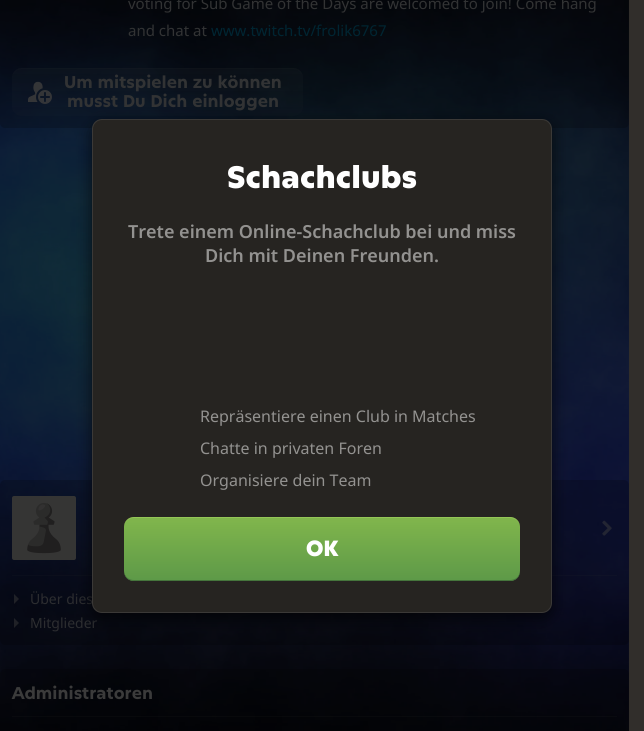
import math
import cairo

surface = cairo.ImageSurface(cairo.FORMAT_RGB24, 644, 731)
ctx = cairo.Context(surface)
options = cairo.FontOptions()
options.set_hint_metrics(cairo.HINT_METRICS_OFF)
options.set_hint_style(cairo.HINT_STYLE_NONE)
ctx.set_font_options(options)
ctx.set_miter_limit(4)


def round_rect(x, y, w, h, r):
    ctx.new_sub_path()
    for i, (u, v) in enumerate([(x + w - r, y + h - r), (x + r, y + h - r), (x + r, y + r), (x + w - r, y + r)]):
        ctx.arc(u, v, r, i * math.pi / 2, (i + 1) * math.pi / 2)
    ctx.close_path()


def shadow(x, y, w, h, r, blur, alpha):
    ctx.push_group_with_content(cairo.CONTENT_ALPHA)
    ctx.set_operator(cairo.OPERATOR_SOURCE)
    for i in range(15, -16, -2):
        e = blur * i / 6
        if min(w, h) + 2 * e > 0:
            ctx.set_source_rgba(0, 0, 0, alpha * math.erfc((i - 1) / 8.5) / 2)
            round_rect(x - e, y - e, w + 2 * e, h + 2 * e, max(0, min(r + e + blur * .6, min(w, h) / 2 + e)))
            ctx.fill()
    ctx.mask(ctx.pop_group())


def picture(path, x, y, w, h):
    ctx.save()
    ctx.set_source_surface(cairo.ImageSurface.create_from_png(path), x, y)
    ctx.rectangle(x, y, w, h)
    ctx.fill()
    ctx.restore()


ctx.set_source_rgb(0.192, 0.18, 0.169)
ctx.paint()
picture("img1.png", 0, 0, 629, 731)
ctx.set_source_rgba(0, 0, 0, 0.2)
round_rect(0, -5, 629, 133, 5)
ctx.fill()
ctx.select_font_face("Noto Sans")
ctx.set_font_size(15)
ctx.set_source_rgb(0.196, 0.2, 0.204)
ctx.move_to(128, 9)
ctx.show_text("voting for Sub Game of the Days are welcomed to join! Come hang")
ctx.move_to(128, 36)
ctx.show_text("and chat at")
ctx.set_source_rgb(0, 0.145, 0.196)
ctx.move_to(211, 36)
ctx.show_text("www.twitch.tv/frolik6767")
gradient = cairo.LinearGradient(158, 68, 158, 116)
gradient.add_color_stop_rgba(0, 0.231, 0.231, 0.231, 0.1)
gradient.add_color_stop_rgba(1, 0.231, 0.231, 0.231, 0.05)
ctx.set_source(gradient)
round_rect(12, 68, 291, 48, 10)
ctx.fill()
ctx.set_source_rgba(0.231, 0.231, 0.231, 0.08)
ctx.new_path()
ctx.move_to(22, 69)
ctx.line_to(293, 69)
ctx.curve_to(299, 69, 303, 73, 303, 79)
ctx.line_to(303, 78)
ctx.curve_to(303, 72, 299, 68, 293, 68)
ctx.line_to(22, 68)
ctx.curve_to(16, 68, 12, 72, 12, 78)
ctx.line_to(12, 79)
ctx.curve_to(12, 73, 16, 69, 22, 69)
ctx.close_path()
ctx.fill()
picture("img2.png", 28, 81, 24, 23)
ctx.select_font_face("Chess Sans", cairo.FONT_SLANT_NORMAL, cairo.FONT_WEIGHT_BOLD)
ctx.set_font_size(17)
ctx.set_source_rgb(0.196, 0.2, 0.204)
ctx.move_to(64, 88)
ctx.show_text("Um mitspielen zu können")
ctx.move_to(67, 107)
ctx.show_text("musst Du Dich einloggen")
ctx.set_source_rgba(0, 0, 0, 0.2)
round_rect(0, 480, 629, 165, 5)
ctx.fill()
picture("img3.png", 12, 496, 64, 64)
picture("img4.png", 602, 520, 10, 16)
ctx.set_source_rgba(0.231, 0.231, 0.231, 0.1)
ctx.rectangle(12, 575, 605, 1)
ctx.fill()
ctx.set_source_rgba(0.231, 0.231, 0.231, 0.5)
ctx.new_path()
ctx.move_to(14, 604)
ctx.line_to(14, 594)
ctx.line_to(19, 599)
ctx.close_path()
ctx.fill()
ctx.select_font_face("Noto Sans")
ctx.set_font_size(14)
ctx.set_source_rgb(0.173, 0.176, 0.188)
ctx.move_to(30, 604)
ctx.show_text("Über dies")
ctx.set_source_rgba(0.231, 0.231, 0.231, 0.5)
ctx.new_path()
ctx.move_to(14, 628)
ctx.line_to(14, 618)
ctx.line_to(19, 623)
ctx.close_path()
ctx.fill()
ctx.set_source_rgb(0.173, 0.176, 0.188)
ctx.move_to(30, 628)
ctx.show_text("Mitglieder")
ctx.set_source_rgba(0, 0, 0, 0.2)
round_rect(0, 669, 629, 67, 5)
ctx.fill()
ctx.select_font_face("Chess Sans", cairo.FONT_SLANT_NORMAL, cairo.FONT_WEIGHT_BOLD)
ctx.set_font_size(17)
ctx.set_source_rgb(0.231, 0.231, 0.231)
ctx.move_to(12, 699)
ctx.show_text("Administratoren")
ctx.set_source_rgba(0.231, 0.231, 0.231, 0.1)
ctx.rectangle(12, 716, 605, 1)
ctx.fill()
ctx.set_source_rgb(0, 0, 0)
shadow(92, 124, 460, 494, 10, 7.5, 0.65)
ctx.set_source_rgb(0.149, 0.141, 0.129)
round_rect(92, 119, 460, 494, 10)
ctx.fill()
round_rect(92.5, 119.5, 459, 493, 9.5)
ctx.set_source_rgba(1, 1, 1, 0.1)
ctx.set_line_width(1)
ctx.stroke()
ctx.select_font_face("Chess Sans ExtraBold")
ctx.set_font_size(31)
ctx.set_source_rgb(1, 1, 1)
ctx.move_to(227, 188)
ctx.show_text("Schachclubs")
ctx.select_font_face("Noto Sans SemiBold")
ctx.set_font_size(18)
ctx.set_source_rgb(0.576, 0.573, 0.565)
ctx.move_to(128, 238)
ctx.show_text("Trete einem Online-Schachclub bei und miss")
ctx.move_to(205, 262)
ctx.show_text("Dich mit Deinen Freunden.")
ctx.select_font_face("Noto Sans")
ctx.set_font_size(16)
ctx.move_to(200, 422)
ctx.show_text("Repräsentiere einen Club in Matches")
ctx.move_to(200, 454)
ctx.show_text("Chatte in privaten Foren")
ctx.move_to(200, 486)
ctx.show_text("Organisiere dein Team")
gradient = cairo.LinearGradient(322, 517, 322, 581)
gradient.add_color_stop_rgba(0, 0.506, 0.714, 0.298, 1)
gradient.add_color_stop_rgba(1, 0.365, 0.6, 0.282, 1)
ctx.set_source(gradient)
round_rect(124, 517, 396, 64, 10)
ctx.fill()
ctx.set_source_rgb(0.271, 0.459, 0.235)
ctx.new_path()
ctx.move_to(124, 570)
ctx.line_to(124, 571)
ctx.curve_to(124, 577, 128, 581, 134, 581)
ctx.line_to(510, 581)
ctx.curve_to(516, 581, 520, 577, 520, 571)
ctx.line_to(520, 570)
ctx.curve_to(520, 576, 516, 580, 510, 580)
ctx.line_to(134, 580)
ctx.curve_to(128, 580, 124, 576, 124, 570)
ctx.close_path()
ctx.fill()
ctx.set_source_rgba(0.698, 0.878, 0.408, 0.4)
ctx.new_path()
ctx.move_to(134, 518)
ctx.line_to(510, 518)
ctx.curve_to(516, 518, 520, 522, 520, 528)
ctx.line_to(520, 527)
ctx.curve_to(520, 521, 516, 517, 510, 517)
ctx.line_to(134, 517)
ctx.curve_to(128, 517, 124, 521, 124, 527)
ctx.line_to(124, 528)
ctx.curve_to(124, 522, 128, 518, 134, 518)
ctx.close_path()
ctx.fill()
ctx.select_font_face("Chess Sans ExtraBold")
ctx.set_font_size(22)
ctx.set_source_rgb(1, 1, 1)
ctx.move_to(306, 556)
ctx.show_text("OK")
surface.write_to_png("page.png")
